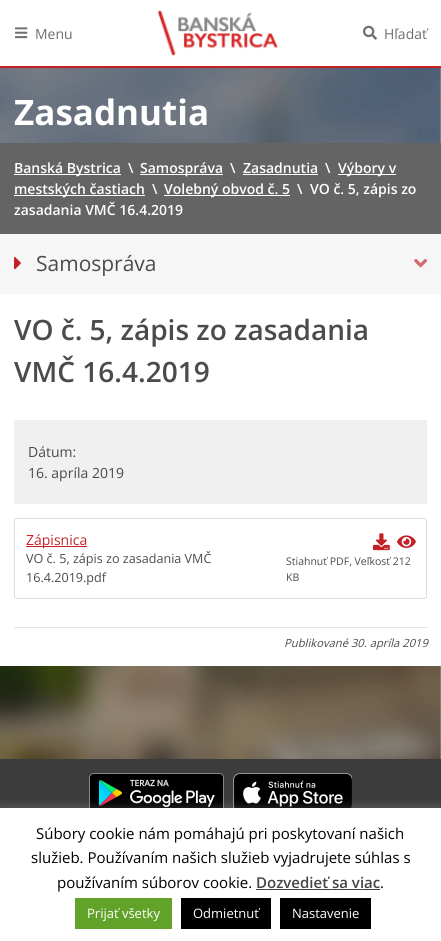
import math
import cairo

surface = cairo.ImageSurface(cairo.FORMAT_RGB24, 441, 941)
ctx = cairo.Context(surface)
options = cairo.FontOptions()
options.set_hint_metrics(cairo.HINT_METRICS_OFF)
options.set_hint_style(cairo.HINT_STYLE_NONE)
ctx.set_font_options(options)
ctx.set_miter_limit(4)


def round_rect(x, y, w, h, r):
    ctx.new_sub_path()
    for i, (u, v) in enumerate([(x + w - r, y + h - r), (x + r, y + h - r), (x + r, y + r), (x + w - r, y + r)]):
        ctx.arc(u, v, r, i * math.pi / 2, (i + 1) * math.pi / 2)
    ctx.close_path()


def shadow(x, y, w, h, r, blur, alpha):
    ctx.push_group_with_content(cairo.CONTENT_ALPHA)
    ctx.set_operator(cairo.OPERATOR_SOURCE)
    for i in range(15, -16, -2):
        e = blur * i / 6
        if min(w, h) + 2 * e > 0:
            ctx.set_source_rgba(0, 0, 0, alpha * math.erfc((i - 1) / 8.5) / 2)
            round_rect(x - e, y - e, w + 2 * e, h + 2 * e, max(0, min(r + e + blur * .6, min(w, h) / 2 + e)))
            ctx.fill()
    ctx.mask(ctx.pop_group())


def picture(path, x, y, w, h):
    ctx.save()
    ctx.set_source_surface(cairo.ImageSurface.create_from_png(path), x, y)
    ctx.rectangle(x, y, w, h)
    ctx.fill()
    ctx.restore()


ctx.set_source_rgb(1, 1, 1)
ctx.paint()
picture("img1.png", 0, 68, 441, 691)
ctx.set_source_rgb(0.765, 0.129, 0.145)
ctx.rectangle(0, 66, 441, 2)
ctx.fill()
picture("img2.png", 15, 27, 13, 12)
ctx.select_font_face("Open Sans")
ctx.set_font_size(14)
ctx.set_source_rgb(0.431, 0.431, 0.431)
ctx.move_to(35, 39)
ctx.show_text("Menu")
picture("img3.png", 158, 10, 120, 46)
picture("img4.png", 363, 25, 14, 15)
ctx.move_to(384, 39)
ctx.show_text("Hľadať")
ctx.select_font_face("Open Sans", cairo.FONT_SLANT_NORMAL, cairo.FONT_WEIGHT_BOLD)
ctx.set_font_size(35)
ctx.set_source_rgb(1, 1, 1)
ctx.move_to(14, 125)
ctx.show_text("Zasadnutia")
ctx.set_source_rgb(0.392, 0.392, 0.392)
ctx.rectangle(0, 143, 441, 91)
ctx.fill()
ctx.set_source_rgb(1, 1, 1)
ctx.rectangle(14, 174, 107, 1)
ctx.fill()
ctx.select_font_face("Open Sans SemiBold")
ctx.set_font_size(14)
ctx.move_to(14, 173)
ctx.show_text("Banská Bystrica")
ctx.move_to(128, 173)
ctx.show_text("\\")
ctx.rectangle(140, 174, 83, 1)
ctx.fill()
ctx.move_to(140, 173)
ctx.show_text("Samospráva")
ctx.move_to(230, 173)
ctx.show_text("\\")
ctx.move_to(243, 173)
ctx.show_text("Zasadnutia")
ctx.rectangle(243, 174, 75, 1)
ctx.fill()
ctx.move_to(325, 173)
ctx.show_text("\\")
ctx.rectangle(338, 174, 58, 1)
ctx.fill()
ctx.move_to(338, 173)
ctx.show_text("Výbory v")
ctx.rectangle(14, 195, 131, 1)
ctx.fill()
ctx.move_to(14, 194)
ctx.show_text("mestských častiach")
ctx.move_to(152, 194)
ctx.show_text("\\")
ctx.rectangle(164, 195, 126, 1)
ctx.fill()
ctx.move_to(164, 194)
ctx.show_text("Volebný obvod č. 5")
ctx.move_to(297, 194)
ctx.show_text("\\")
ctx.move_to(310, 194)
ctx.show_text("VO č. 5, zápis zo")
ctx.move_to(14, 215)
ctx.show_text("zasadania VMČ 16.4.2019")
ctx.set_source_rgb(0.961, 0.961, 0.961)
ctx.rectangle(0, 234, 441, 60)
ctx.fill()
picture("img5.png", 14, 257, 7, 13)
ctx.select_font_face("Open Sans")
ctx.set_font_size(21)
ctx.set_source_rgb(0.294, 0.294, 0.294)
ctx.move_to(36, 271)
ctx.show_text("Samospráva")
picture("img6.png", 414, 258, 14, 10)
ctx.set_source_rgb(1, 1, 1)
ctx.rectangle(0, 294, 441, 372)
ctx.fill()
ctx.select_font_face("Open Sans SemiBold")
ctx.set_font_size(28)
ctx.set_source_rgb(0.294, 0.294, 0.294)
ctx.move_to(14, 340)
ctx.show_text("VO č. 5, zápis zo zasadania")
ctx.move_to(14, 382)
ctx.show_text("VMČ 16.4.2019")
ctx.set_source_rgb(0.941, 0.941, 0.941)
ctx.rectangle(14, 420, 413, 84)
ctx.fill()
ctx.select_font_face("Open Sans")
ctx.set_font_size(14)
ctx.set_source_rgb(0.294, 0.294, 0.294)
ctx.move_to(28, 457)
ctx.show_text("Dátum:")
ctx.move_to(28, 478)
ctx.show_text("16. apríla 2019")
round_rect(14.5, 518.5, 412, 80, 2.5)
ctx.set_source_rgb(0.863, 0.863, 0.863)
ctx.set_line_width(1)
ctx.stroke()
ctx.set_source_rgb(0.765, 0.129, 0.145)
ctx.rectangle(26, 546, 61, 1)
ctx.fill()
ctx.move_to(26, 545)
ctx.show_text("Zápisnica")
ctx.set_font_size(12.6)
ctx.set_source_rgb(0.294, 0.294, 0.294)
ctx.move_to(26, 563)
ctx.show_text("VO č. 5, zápis zo zasadania VMČ")
ctx.move_to(26, 582)
ctx.show_text("16.4.2019.pdf")
picture("img7.png", 373, 533, 17, 18)
picture("img8.png", 397, 535, 19, 13)
ctx.set_font_size(10.5)
ctx.move_to(286, 565)
ctx.show_text("Stiahnuť PDF, Veľkosť 212")
ctx.move_to(286, 581)
ctx.show_text("KB")
ctx.set_source_rgb(0.902, 0.902, 0.902)
ctx.rectangle(14, 627, 413, 1)
ctx.fill()
ctx.select_font_face("Open Sans", cairo.FONT_SLANT_ITALIC)
ctx.set_font_size(11.25)
ctx.set_source_rgb(0.294, 0.294, 0.294)
ctx.move_to(284, 647)
ctx.show_text("Publikované 30. apríla 2019")
ctx.set_source_rgb(0.235, 0.235, 0.235)
ctx.rectangle(0, 759, 441, 49)
ctx.fill()
picture("img9.png", 89, 773, 135, 35)
picture("img10.png", 233, 773, 119, 35)
ctx.set_source_rgb(0.675, 0.671, 0.671)
shadow(0, 807, 441, 133, 0, 5, 0.3)
ctx.set_source_rgb(1, 1, 1)
ctx.rectangle(0, 808, 441, 133)
ctx.fill()
ctx.select_font_face("Open Sans")
ctx.set_font_size(15)
ctx.set_source_rgb(0, 0, 0)
ctx.move_to(36, 839)
ctx.show_text("Súbory cookie nám pomáhajú pri poskytovaní našich")
ctx.move_to(31, 863)
ctx.show_text("služieb. Používaním našich služieb vyjadrujete súhlas s")
ctx.move_to(57, 888)
ctx.show_text("používaním súborov cookie.")
ctx.select_font_face("Open Sans SemiBold")
ctx.set_source_rgb(0.267, 0.267, 0.267)
ctx.move_to(256, 888)
ctx.show_text("Dozvedieť sa viac")
ctx.rectangle(256, 889, 124, 1)
ctx.fill()
ctx.select_font_face("Open Sans")
ctx.set_source_rgb(0, 0, 0)
ctx.move_to(380, 888)
ctx.show_text(".")
ctx.set_source_rgb(0.38, 0.635, 0.161)
ctx.rectangle(75, 898, 97, 31)
ctx.fill()
ctx.set_font_size(13)
ctx.set_source_rgb(1, 1, 1)
ctx.move_to(87, 918)
ctx.show_text("Prijať všetky")
ctx.set_source_rgb(0, 0, 0)
ctx.rectangle(181, 898, 90, 31)
ctx.fill()
ctx.set_source_rgb(1, 1, 1)
ctx.move_to(193, 918)
ctx.show_text("Odmietnuť")
ctx.set_source_rgb(0, 0, 0)
ctx.rectangle(280, 898, 91, 31)
ctx.fill()
ctx.set_source_rgb(1, 1, 1)
ctx.move_to(292, 918)
ctx.show_text("Nastavenie")
surface.write_to_png("page.png")
